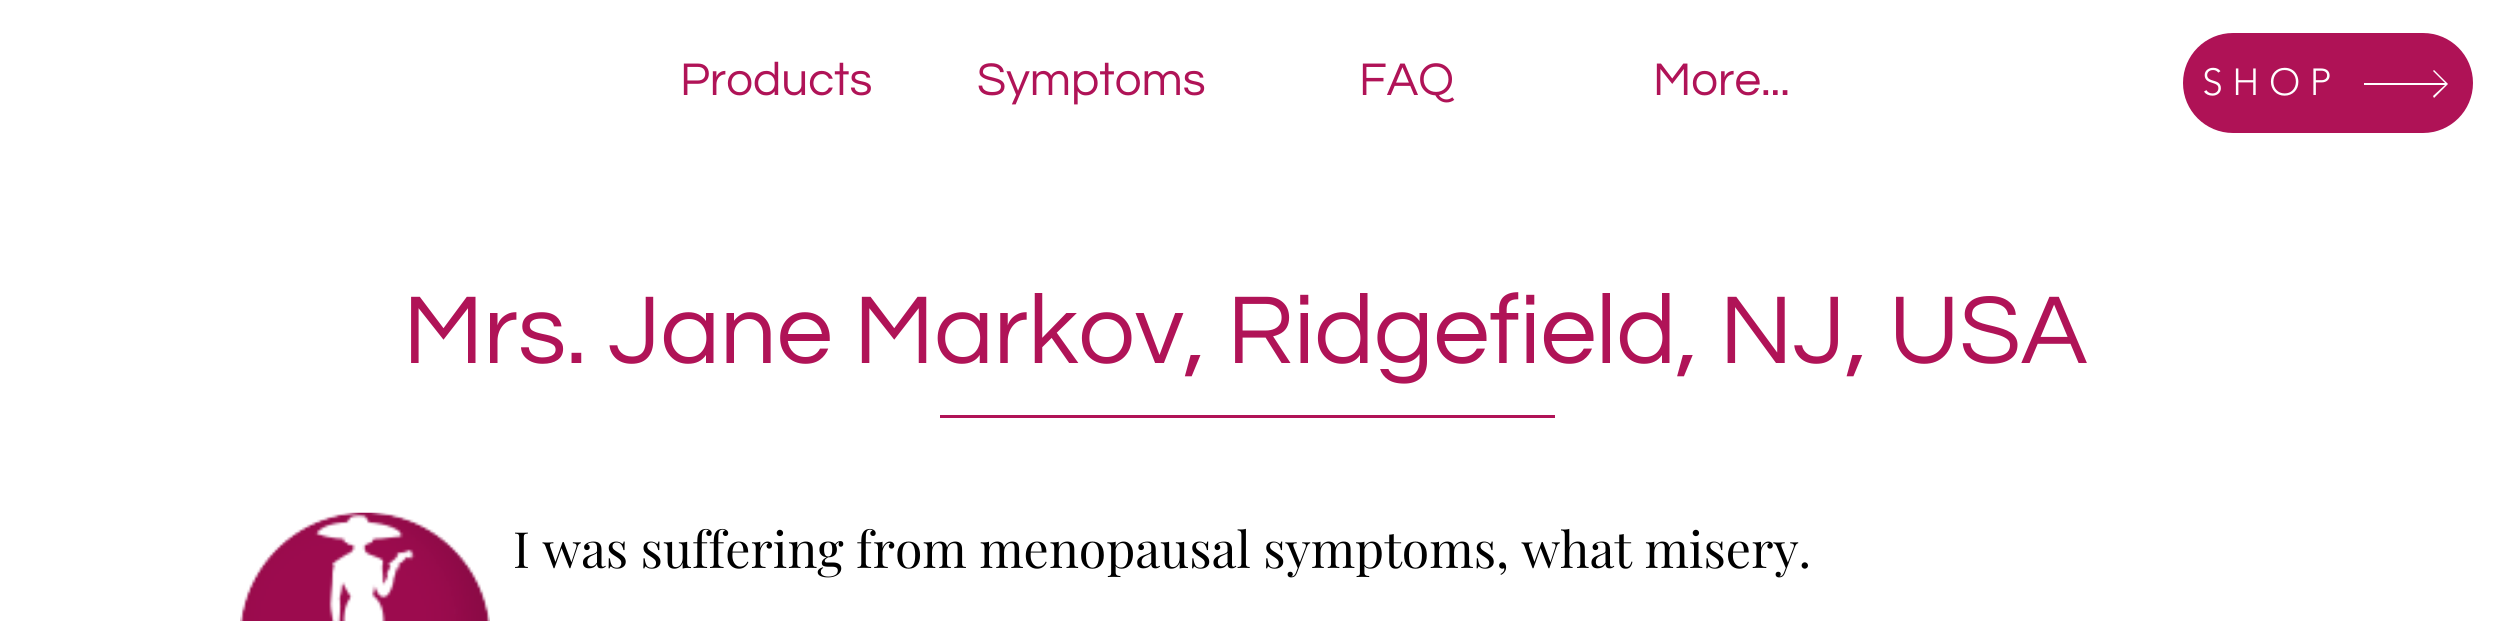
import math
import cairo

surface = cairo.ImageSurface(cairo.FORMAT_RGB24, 2495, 621)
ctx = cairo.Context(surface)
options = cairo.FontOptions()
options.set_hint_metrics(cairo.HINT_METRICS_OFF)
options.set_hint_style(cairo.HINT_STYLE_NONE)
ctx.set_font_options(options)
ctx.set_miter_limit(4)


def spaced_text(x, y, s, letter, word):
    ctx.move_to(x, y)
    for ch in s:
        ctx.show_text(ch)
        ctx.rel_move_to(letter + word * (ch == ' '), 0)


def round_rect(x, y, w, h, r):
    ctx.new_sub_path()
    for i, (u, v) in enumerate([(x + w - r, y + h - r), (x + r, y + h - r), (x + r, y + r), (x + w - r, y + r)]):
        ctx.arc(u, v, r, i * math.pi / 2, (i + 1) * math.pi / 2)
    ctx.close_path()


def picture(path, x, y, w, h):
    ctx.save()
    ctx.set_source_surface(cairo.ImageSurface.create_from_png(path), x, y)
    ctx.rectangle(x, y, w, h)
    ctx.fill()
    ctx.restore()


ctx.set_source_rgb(1, 1, 1)
ctx.paint()
ctx.select_font_face("Questrial")
ctx.set_font_size(47.5)
ctx.set_source_rgb(0.69, 0.075, 0.341)
ctx.move_to(680, 95)
ctx.show_text("Products")
ctx.move_to(977, 95)
ctx.show_text("Symptoms")
ctx.move_to(1359, 95)
ctx.show_text("FAQ")
ctx.move_to(1653, 95)
ctx.show_text("More...")
ctx.set_source_rgb(0.686, 0.071, 0.337)
round_rect(2183, 33, 290, 100, 50)
ctx.fill()
ctx.select_font_face("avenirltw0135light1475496 Light")
ctx.set_font_size(37.5)
ctx.set_source_rgb(1, 1, 1)
spaced_text(2202, 95, "SHOP", 9.5, 0)
ctx.new_path()
ctx.move_to(2434, 70)
ctx.line_to(2433, 71)
ctx.line_to(2445, 83)
ctx.line_to(2364, 83)
ctx.line_to(2364, 85)
ctx.line_to(2445, 85)
ctx.line_to(2433, 96)
ctx.line_to(2434, 98)
ctx.line_to(2448, 84)
ctx.close_path()
ctx.fill()
ctx.select_font_face("Questrial")
ctx.set_font_size(100)
ctx.set_source_rgb(0.69, 0.075, 0.341)
ctx.move_to(403, 363)
ctx.show_text("Mrs. Jane Markov, Ridgefield, NJ, USA")
ctx.rectangle(940, 415, 615, 3)
ctx.fill()
picture("img1.png", 240, 512, 250, 109)
ctx.select_font_face("Playfair Display")
ctx.set_font_size(50)
ctx.set_source_rgb(0, 0, 0)
ctx.move_to(513, 568)
ctx.show_text("I was suffering from menopausal symptoms, what misery.")
surface.write_to_png("page.png")
